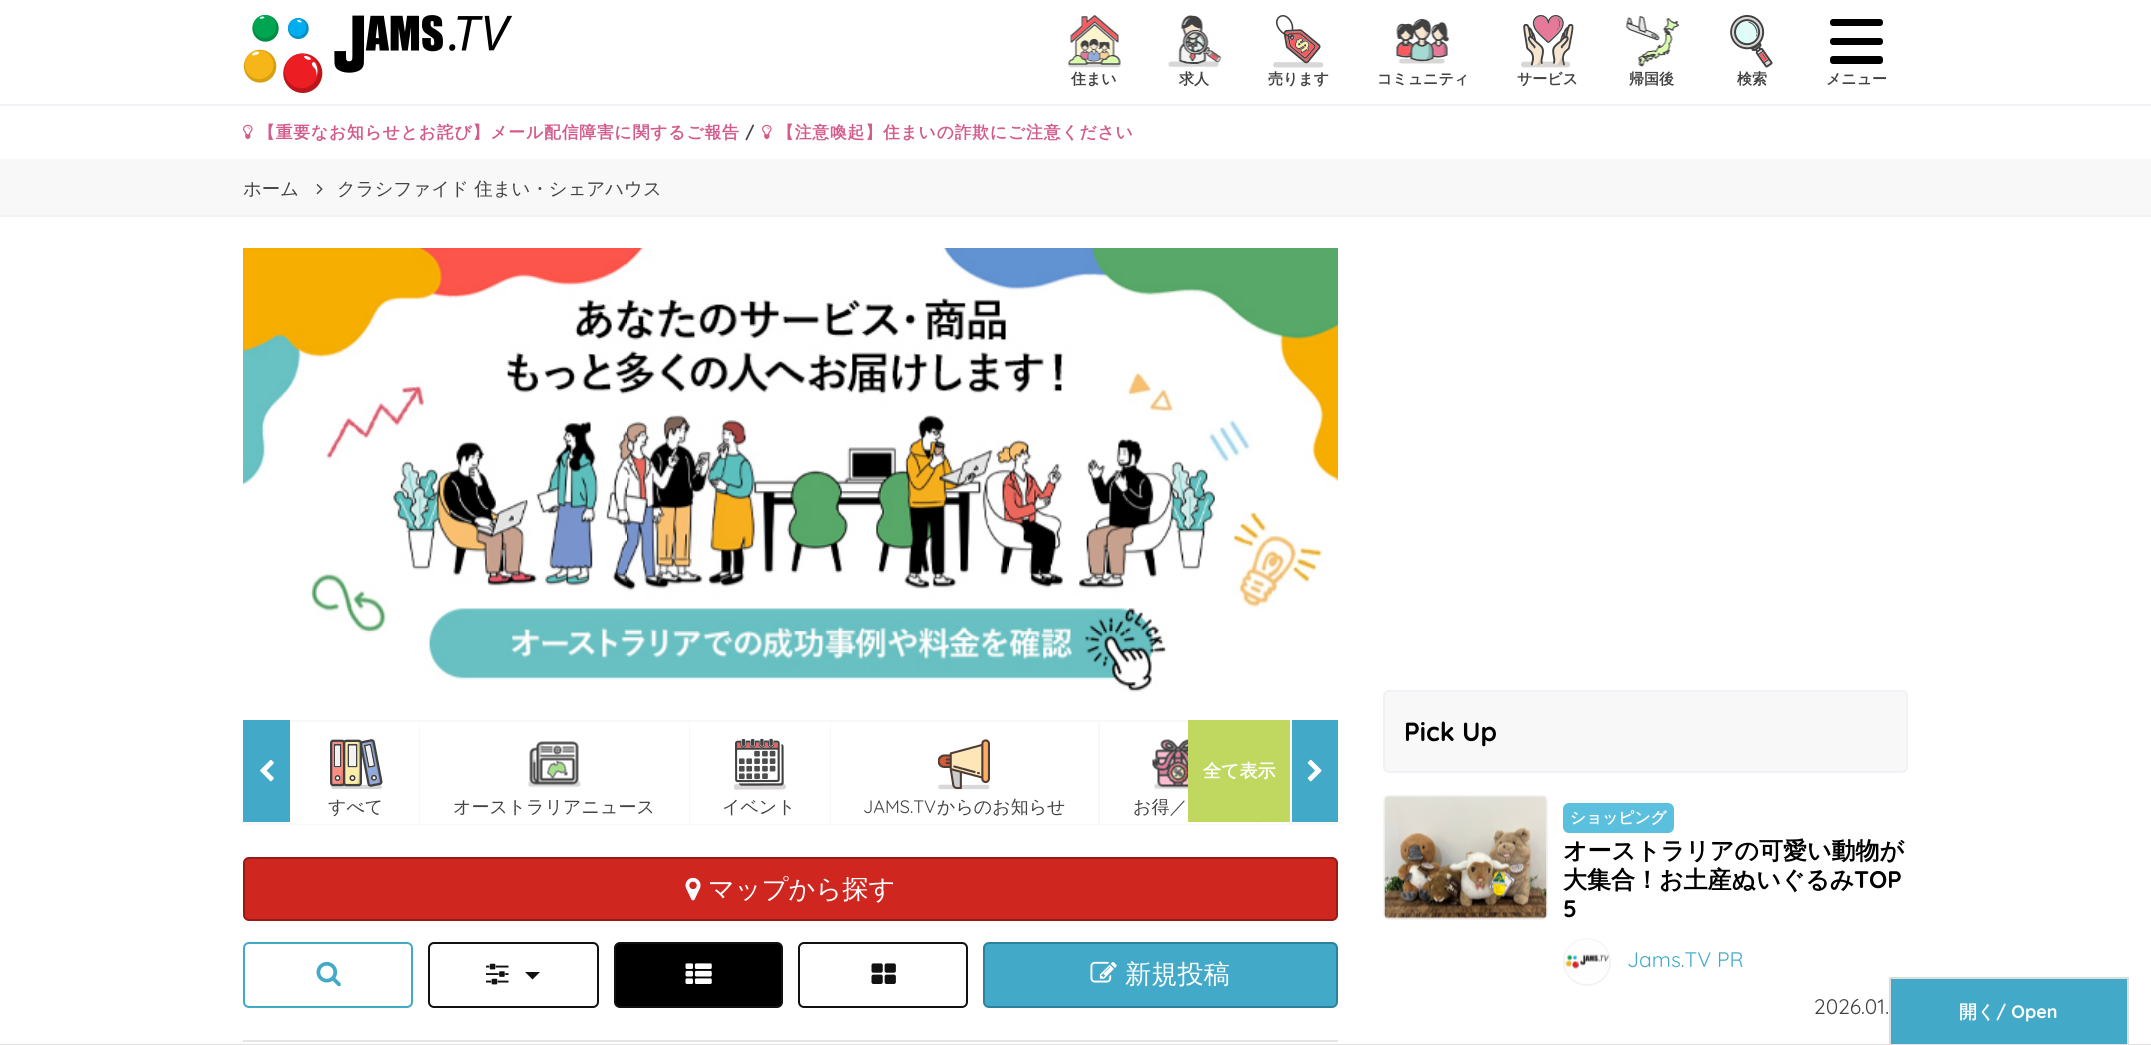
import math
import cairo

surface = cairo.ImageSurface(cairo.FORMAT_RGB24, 2151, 1045)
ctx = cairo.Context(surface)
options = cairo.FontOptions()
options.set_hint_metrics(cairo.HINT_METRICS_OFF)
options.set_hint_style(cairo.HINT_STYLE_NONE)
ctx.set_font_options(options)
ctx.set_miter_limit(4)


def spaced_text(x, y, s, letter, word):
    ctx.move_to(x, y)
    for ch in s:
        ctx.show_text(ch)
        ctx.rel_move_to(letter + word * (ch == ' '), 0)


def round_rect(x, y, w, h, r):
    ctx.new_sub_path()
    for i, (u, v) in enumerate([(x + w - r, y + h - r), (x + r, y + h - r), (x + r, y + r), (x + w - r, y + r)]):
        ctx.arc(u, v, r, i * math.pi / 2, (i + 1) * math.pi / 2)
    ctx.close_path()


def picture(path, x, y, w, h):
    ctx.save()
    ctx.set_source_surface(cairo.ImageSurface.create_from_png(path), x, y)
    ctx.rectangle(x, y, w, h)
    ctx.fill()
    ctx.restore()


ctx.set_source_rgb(1, 1, 1)
ctx.paint()
ctx.set_source_rgb(0.945, 0.945, 0.961)
ctx.rectangle(0, 104, 2151, 2)
ctx.fill()
picture("img1.png", 243, 15, 269, 78)
picture("img2.png", 1068, 15, 53, 53)
ctx.select_font_face("WenQuanYi Zen Hei", cairo.FONT_SLANT_NORMAL, cairo.FONT_WEIGHT_BOLD)
ctx.set_font_size(15)
ctx.set_source_rgb(0.263, 0.263, 0.263)
ctx.move_to(1071, 84)
ctx.show_text("住まい")
picture("img3.png", 1168, 15, 54, 52)
ctx.move_to(1179, 84)
ctx.show_text("求人")
picture("img4.png", 1273, 15, 51, 53)
ctx.move_to(1268, 84)
ctx.show_text("売ります")
picture("img5.png", 1396, 19, 54, 45)
ctx.move_to(1377, 84)
ctx.show_text("コミュニティ")
picture("img6.png", 1521, 15, 53, 53)
ctx.move_to(1517, 84)
ctx.show_text("サービス")
picture("img7.png", 1626, 16, 53, 51)
ctx.move_to(1629, 84)
ctx.show_text("帰国後")
picture("img8.png", 1730, 15, 43, 53)
ctx.move_to(1737, 84)
ctx.show_text("検索")
ctx.set_source_rgb(0, 0, 0)
round_rect(1830, 19, 53, 7, 3)
ctx.fill()
round_rect(1830, 38, 53, 7, 3)
ctx.fill()
round_rect(1830, 56, 53, 8, 3)
ctx.fill()
ctx.set_source_rgb(0.263, 0.263, 0.263)
ctx.move_to(1826, 84)
ctx.show_text("メニュー")
picture("img9.png", 243, 124, 10, 16)
ctx.set_font_size(16.8)
ctx.set_source_rgb(0.827, 0.361, 0.549)
spaced_text(258, 138, "【重要なお知らせとお詫び】メール配信障害に関するご報告", 0.85, 0)
ctx.select_font_face("Quicksand", cairo.FONT_SLANT_NORMAL, cairo.FONT_WEIGHT_BOLD)
ctx.set_source_rgb(0.263, 0.263, 0.263)
spaced_text(745, 138, "/", 0.85, 0)
picture("img9.png", 762, 124, 10, 16)
ctx.select_font_face("WenQuanYi Zen Hei", cairo.FONT_SLANT_NORMAL, cairo.FONT_WEIGHT_BOLD)
ctx.set_source_rgb(0.827, 0.361, 0.549)
spaced_text(777, 138, "【注意喚起】住まいの詐欺にご注意ください", 0.85, 0)
ctx.set_source_rgb(0.969, 0.969, 0.976)
ctx.rectangle(0, 159, 2151, 56)
ctx.fill()
ctx.set_source_rgb(0.945, 0.945, 0.961)
ctx.rectangle(0, 215, 2151, 2)
ctx.fill()
ctx.select_font_face("WenQuanYi Zen Hei Medium")
ctx.set_font_size(18.4)
ctx.set_source_rgb(0.263, 0.263, 0.263)
ctx.move_to(243, 195)
ctx.show_text("ホーム")
picture("img10.png", 316, 184, 7, 11)
ctx.move_to(337, 195)
ctx.show_text("クラシファイド 住まい・シェアハウス")
picture("img11.png", 243, 248, 1095, 444)
ctx.rectangle(244, 721, 1093, 103)
ctx.set_source_rgb(0.969, 0.969, 0.976)
ctx.stroke()
ctx.set_source_rgb(0.263, 0.663, 0.784)
ctx.rectangle(243, 720, 47, 102)
ctx.fill()
picture("img12.png", 260, 759, 14, 23)
ctx.set_source_rgb(0.753, 0.847, 0.376)
ctx.rectangle(1188, 720, 102, 102)
ctx.fill()
ctx.select_font_face("WenQuanYi Zen Hei", cairo.FONT_SLANT_NORMAL, cairo.FONT_WEIGHT_BOLD)
ctx.set_font_size(18)
ctx.set_source_rgb(1, 1, 1)
ctx.move_to(1203, 777)
ctx.show_text("全て表示")
ctx.set_source_rgb(0.263, 0.663, 0.784)
ctx.rectangle(1292, 720, 46, 102)
ctx.fill()
picture("img13.png", 1307, 759, 15, 23)
ctx.set_source_rgb(1, 1, 1)
ctx.rectangle(293, 823, 126, 1)
ctx.fill()
ctx.set_source_rgb(0.969, 0.969, 0.976)
ctx.rectangle(419, 722, 1, 102)
ctx.fill()
picture("img14.png", 330, 739, 53, 50)
ctx.select_font_face("WenQuanYi Zen Hei Medium")
ctx.set_source_rgb(0.263, 0.263, 0.263)
ctx.move_to(328, 813)
ctx.show_text("すべて")
ctx.set_source_rgb(1, 1, 1)
ctx.rectangle(420, 823, 269, 1)
ctx.fill()
ctx.set_source_rgb(0.969, 0.969, 0.976)
ctx.rectangle(689, 722, 1, 102)
ctx.fill()
picture("img15.png", 528, 741, 53, 47)
ctx.set_source_rgb(0.263, 0.263, 0.263)
ctx.move_to(453, 813)
ctx.show_text("オーストラリアニュース")
ctx.set_source_rgb(1, 1, 1)
ctx.rectangle(690, 823, 140, 1)
ctx.fill()
ctx.set_source_rgb(0.969, 0.969, 0.976)
ctx.rectangle(830, 722, 1, 102)
ctx.fill()
picture("img16.png", 734, 738, 52, 52)
ctx.set_source_rgb(0.263, 0.263, 0.263)
ctx.move_to(722, 813)
ctx.show_text("イベント")
ctx.set_source_rgb(1, 1, 1)
ctx.rectangle(831, 823, 267, 1)
ctx.fill()
ctx.set_source_rgb(0.969, 0.969, 0.976)
ctx.rectangle(1098, 722, 2, 102)
ctx.fill()
picture("img17.png", 938, 739, 52, 51)
ctx.select_font_face("Quicksand")
ctx.set_source_rgb(0.263, 0.263, 0.263)
ctx.move_to(863, 813)
ctx.show_text("JAMS.TV")
ctx.select_font_face("WenQuanYi Zen Hei Medium")
ctx.move_to(937, 813)
ctx.show_text("からのお知らせ")
ctx.set_source_rgb(1, 1, 1)
ctx.rectangle(1100, 823, 156, 1)
ctx.fill()
ctx.set_source_rgb(0.969, 0.969, 0.976)
ctx.rectangle(1256, 822, 1, 2)
ctx.fill()
picture("img18.png", 1152, 739, 36, 51)
ctx.set_source_rgb(0.263, 0.263, 0.263)
ctx.move_to(1133, 813)
ctx.show_text("お得／")
ctx.set_source_rgb(1, 1, 1)
ctx.rectangle(1257, 823, 32, 1)
ctx.fill()
ctx.set_source_rgb(0.812, 0.149, 0.125)
round_rect(244, 858, 1093, 62, 5)
ctx.fill_preserve()
ctx.set_source_rgb(0.588, 0.106, 0.09)
ctx.stroke()
picture("img19.png", 685, 877, 16, 24)
ctx.set_font_size(26.25)
ctx.set_source_rgb(1, 1, 1)
ctx.move_to(708, 898)
ctx.show_text("マップから探す")
round_rect(244, 943, 168, 64, 5)
ctx.set_source_rgb(0.263, 0.663, 0.784)
ctx.stroke()
picture("img20.png", 316, 961, 25, 26)
round_rect(429, 943, 169, 64, 5)
ctx.set_source_rgb(0.067, 0.067, 0.067)
ctx.stroke()
picture("img21.png", 486, 963, 23, 22)
ctx.new_path()
ctx.move_to(525, 972)
ctx.line_to(540, 972)
ctx.line_to(532.5, 979.5)
ctx.close_path()
ctx.fill()
ctx.set_source_rgb(0, 0, 0)
round_rect(615, 943, 167, 64, 5)
ctx.fill_preserve()
ctx.set_source_rgb(0.067, 0.067, 0.067)
ctx.stroke()
picture("img22.png", 685, 963, 27, 21)
round_rect(799, 943, 168, 64, 5)
ctx.stroke()
picture("img23.png", 871, 963, 25, 21)
ctx.set_source_rgb(0.263, 0.663, 0.784)
round_rect(984, 943, 353, 64, 5)
ctx.fill_preserve()
ctx.set_source_rgb(0.176, 0.51, 0.608)
ctx.stroke()
picture("img24.png", 1090, 961, 27, 22)
ctx.set_source_rgb(1, 1, 1)
ctx.move_to(1125, 983)
ctx.show_text("新規投稿")
ctx.set_source_rgb(0.902, 0.902, 0.902)
ctx.rectangle(243, 1040, 1095, 2)
ctx.fill()
ctx.set_source_rgb(0.969, 0.969, 0.976)
round_rect(1384, 691, 523, 81, 5)
ctx.fill_preserve()
ctx.set_source_rgb(0.945, 0.945, 0.961)
ctx.stroke()
ctx.select_font_face("Quicksand", cairo.FONT_SLANT_NORMAL, cairo.FONT_WEIGHT_BOLD)
ctx.set_source_rgb(0, 0, 0)
ctx.move_to(1404, 741)
ctx.show_text("Pick Up")
round_rect(1384, 796, 163, 123, 5)
ctx.set_source_rgb(0.953, 0.953, 0.953)
ctx.stroke()
picture("img25.png", 1384, 796, 163, 123)
ctx.set_source_rgb(0.357, 0.753, 0.871)
round_rect(1563, 803, 111, 30, 6)
ctx.fill()
ctx.select_font_face("WenQuanYi Zen Hei", cairo.FONT_SLANT_NORMAL, cairo.FONT_WEIGHT_BOLD)
ctx.set_font_size(15.75)
ctx.set_source_rgb(1, 1, 1)
ctx.move_to(1570, 823)
ctx.show_text("ショッピング")
ctx.set_font_size(24)
ctx.set_source_rgb(0, 0, 0)
ctx.move_to(1563, 859)
ctx.show_text("オーストラリアの可愛い動物が")
ctx.move_to(1563, 888)
ctx.show_text("大集合！お土産ぬいぐるみ")
ctx.select_font_face("Quicksand", cairo.FONT_SLANT_NORMAL, cairo.FONT_WEIGHT_BOLD)
ctx.move_to(1854, 888)
ctx.show_text("TOP")
ctx.move_to(1563, 917)
ctx.show_text("5")
ctx.new_path()
ctx.arc(1587, 962, 23, 0, 2 * math.pi)
ctx.set_source_rgb(0.953, 0.953, 0.953)
ctx.stroke()
picture("img26.png", 1565, 939, 44, 41)
ctx.select_font_face("Quicksand")
ctx.set_font_size(21)
ctx.set_source_rgb(0.263, 0.663, 0.784)
ctx.move_to(1627, 967)
ctx.show_text("Jams.TV PR")
ctx.set_source_rgb(0.263, 0.263, 0.263)
ctx.move_to(1814, 1014)
ctx.show_text("2026.01.")
ctx.set_source_rgb(0.882, 0.882, 0.882)
ctx.rectangle(0, 1044, 2151, 1)
ctx.fill()
ctx.set_source_rgb(0.263, 0.663, 0.784)
ctx.rectangle(1891, 979, 236, 65)
ctx.fill()
ctx.set_source_rgb(0.867, 0.867, 0.867)
ctx.rectangle(1889, 977, 240, 2)
ctx.fill()
ctx.rectangle(2127, 977, 2, 67)
ctx.fill()
ctx.rectangle(1889, 977, 2, 67)
ctx.fill()
ctx.select_font_face("WenQuanYi Zen Hei", cairo.FONT_SLANT_NORMAL, cairo.FONT_WEIGHT_BOLD)
ctx.set_font_size(18)
ctx.set_source_rgb(1, 1, 1)
ctx.move_to(1959, 1018)
ctx.show_text("開く")
ctx.select_font_face("Quicksand", cairo.FONT_SLANT_NORMAL, cairo.FONT_WEIGHT_BOLD)
ctx.move_to(1996, 1018)
ctx.show_text("/ Open")
surface.write_to_png("page.png")
